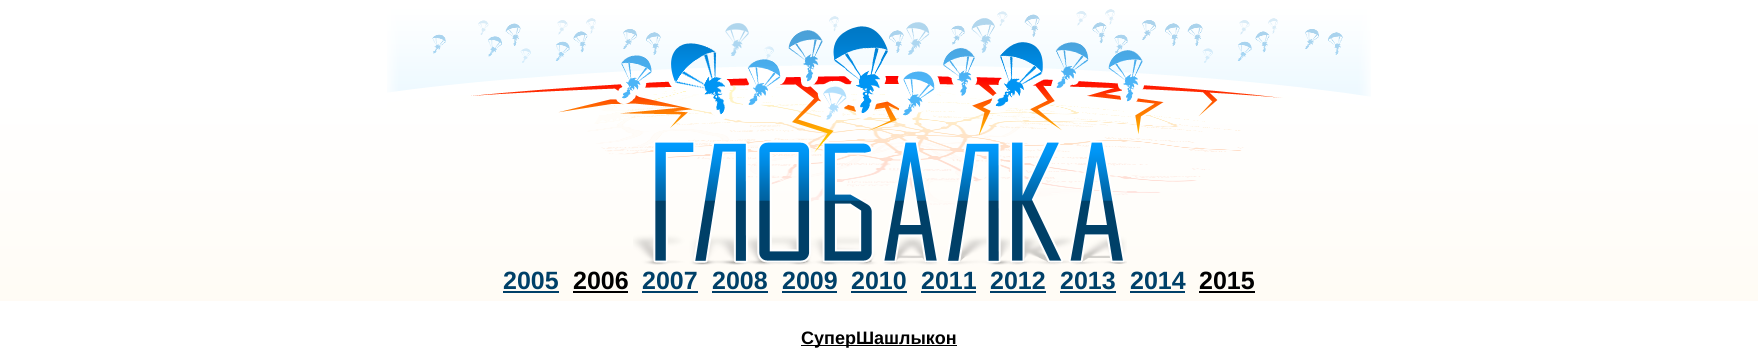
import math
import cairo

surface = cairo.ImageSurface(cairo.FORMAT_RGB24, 1758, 358)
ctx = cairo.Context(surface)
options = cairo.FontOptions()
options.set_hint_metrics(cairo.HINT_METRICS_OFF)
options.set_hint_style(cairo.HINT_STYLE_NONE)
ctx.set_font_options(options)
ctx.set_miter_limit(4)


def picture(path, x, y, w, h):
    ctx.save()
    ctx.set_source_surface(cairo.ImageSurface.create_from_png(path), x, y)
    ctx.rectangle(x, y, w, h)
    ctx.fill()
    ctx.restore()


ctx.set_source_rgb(1, 1, 1)
ctx.paint()
picture("img1.png", 0, 0, 1758, 301)
picture("img2.png", 387, 9, 984, 196)
picture("img3.png", 633, 140, 494, 125)
ctx.select_font_face("Liberation Sans", cairo.FONT_SLANT_NORMAL, cairo.FONT_WEIGHT_BOLD)
ctx.set_font_size(25)
ctx.set_source_rgb(0, 0.251, 0.408)
ctx.move_to(503, 289)
ctx.show_text("2005")
ctx.rectangle(503, 291, 56, 2)
ctx.fill()
ctx.set_source_rgb(0, 0, 0)
ctx.move_to(573, 289)
ctx.show_text("2006")
ctx.rectangle(573, 291, 55, 2)
ctx.fill()
ctx.set_source_rgb(0, 0.251, 0.408)
ctx.move_to(642, 289)
ctx.show_text("2007")
ctx.rectangle(642, 291, 56, 2)
ctx.fill()
ctx.move_to(712, 289)
ctx.show_text("2008")
ctx.rectangle(712, 291, 56, 2)
ctx.fill()
ctx.move_to(782, 289)
ctx.show_text("2009")
ctx.rectangle(782, 291, 55, 2)
ctx.fill()
ctx.move_to(851, 289)
ctx.show_text("2010")
ctx.rectangle(851, 291, 56, 2)
ctx.fill()
ctx.move_to(921, 289)
ctx.show_text("2011")
ctx.rectangle(921, 291, 55, 2)
ctx.fill()
ctx.move_to(990, 289)
ctx.show_text("2012")
ctx.rectangle(990, 291, 56, 2)
ctx.fill()
ctx.move_to(1060, 289)
ctx.show_text("2013")
ctx.rectangle(1060, 291, 56, 2)
ctx.fill()
ctx.move_to(1130, 289)
ctx.show_text("2014")
ctx.rectangle(1130, 291, 55, 2)
ctx.fill()
ctx.set_source_rgb(0, 0, 0)
ctx.move_to(1199, 289)
ctx.show_text("2015")
ctx.rectangle(1199, 291, 56, 2)
ctx.fill()
ctx.rectangle(801, 345, 156, 1)
ctx.fill()
ctx.set_font_size(18)
ctx.move_to(801, 344)
ctx.show_text("СуперШашлыкон")
surface.write_to_png("page.png")
